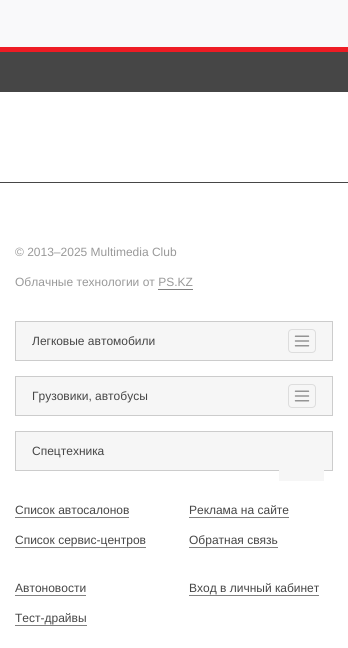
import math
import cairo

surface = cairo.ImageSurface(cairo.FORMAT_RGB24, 348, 648)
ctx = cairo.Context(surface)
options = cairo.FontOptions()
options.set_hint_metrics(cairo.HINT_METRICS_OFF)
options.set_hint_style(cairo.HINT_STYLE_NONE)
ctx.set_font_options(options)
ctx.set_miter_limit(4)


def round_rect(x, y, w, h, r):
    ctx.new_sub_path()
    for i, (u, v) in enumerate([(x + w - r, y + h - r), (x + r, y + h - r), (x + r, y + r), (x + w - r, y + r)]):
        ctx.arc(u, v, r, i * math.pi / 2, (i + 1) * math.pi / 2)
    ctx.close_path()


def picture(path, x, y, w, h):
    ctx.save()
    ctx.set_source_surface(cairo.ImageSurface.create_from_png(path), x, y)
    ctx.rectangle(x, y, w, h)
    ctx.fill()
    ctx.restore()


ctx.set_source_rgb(1, 1, 1)
ctx.paint()
ctx.set_source_rgb(0.275, 0.275, 0.275)
ctx.rectangle(0, 52, 348, 40)
ctx.fill()
ctx.set_source_rgb(0.973, 0.976, 0.98)
ctx.rectangle(0, 0, 348, 47)
ctx.fill()
ctx.set_source_rgb(0.933, 0.11, 0.141)
ctx.rectangle(0, 47, 348, 5)
ctx.fill()
ctx.set_source_rgb(0.275, 0.275, 0.275)
ctx.rectangle(0, 182, 348, 1)
ctx.fill()
ctx.select_font_face("Liberation Sans")
ctx.set_font_size(12)
ctx.set_source_rgb(0.6, 0.6, 0.6)
ctx.move_to(15, 256)
ctx.show_text("© 2013–2025 Multimedia Club")
ctx.move_to(15, 286)
ctx.show_text("Облачные технологии от PS.KZ")
ctx.set_source_rgb(0.502, 0.502, 0.502)
ctx.rectangle(158, 289, 35, 1)
ctx.fill()
ctx.set_source_rgb(0.961, 0.961, 0.961)
ctx.rectangle(15.5, 321.5, 317, 39)
ctx.fill_preserve()
ctx.set_source_rgb(0.8, 0.8, 0.8)
ctx.set_line_width(1)
ctx.stroke()
ctx.set_source_rgb(0.275, 0.275, 0.275)
ctx.move_to(32, 345)
ctx.show_text("Легковые автомобили")
round_rect(288.5, 329.5, 27, 23, 3.5)
ctx.set_source_rgb(0.867, 0.867, 0.867)
ctx.stroke()
picture("img1.png", 294, 335, 16, 12)
ctx.set_source_rgb(0.961, 0.961, 0.961)
ctx.rectangle(15.5, 376.5, 317, 39)
ctx.fill_preserve()
ctx.set_source_rgb(0.8, 0.8, 0.8)
ctx.stroke()
ctx.set_source_rgb(0.275, 0.275, 0.275)
ctx.move_to(32, 400)
ctx.show_text("Грузовики, автобусы")
round_rect(288.5, 384.5, 27, 23, 3.5)
ctx.set_source_rgb(0.867, 0.867, 0.867)
ctx.stroke()
picture("img1.png", 294, 390, 16, 12)
ctx.set_source_rgb(0.961, 0.961, 0.961)
ctx.rectangle(15.5, 431.5, 317, 39)
ctx.fill_preserve()
ctx.set_source_rgb(0.8, 0.8, 0.8)
ctx.stroke()
ctx.set_source_rgb(0.275, 0.275, 0.275)
ctx.move_to(32, 455)
ctx.show_text("Спецтехника")
ctx.move_to(15, 514)
ctx.show_text("Список автосалонов")
ctx.set_source_rgb(0.502, 0.502, 0.502)
ctx.rectangle(15, 517, 114, 1)
ctx.fill()
ctx.set_source_rgb(0.275, 0.275, 0.275)
ctx.move_to(15, 544)
ctx.show_text("Список сервис-центров")
ctx.set_source_rgb(0.502, 0.502, 0.502)
ctx.rectangle(15, 547, 131, 1)
ctx.fill()
ctx.set_source_rgb(0.275, 0.275, 0.275)
ctx.move_to(15, 592)
ctx.show_text("Автоновости")
ctx.set_source_rgb(0.502, 0.502, 0.502)
ctx.rectangle(15, 595, 71, 1)
ctx.fill()
ctx.set_source_rgb(0.275, 0.275, 0.275)
ctx.move_to(15, 622)
ctx.show_text("Тест-драйвы")
ctx.set_source_rgb(0.502, 0.502, 0.502)
ctx.rectangle(15, 625, 72, 1)
ctx.fill()
ctx.set_source_rgb(0.275, 0.275, 0.275)
ctx.move_to(189, 514)
ctx.show_text("Реклама на сайте")
ctx.set_source_rgb(0.502, 0.502, 0.502)
ctx.rectangle(189, 517, 100, 1)
ctx.fill()
ctx.set_source_rgb(0.275, 0.275, 0.275)
ctx.move_to(189, 544)
ctx.show_text("Обратная связь")
ctx.set_source_rgb(0.502, 0.502, 0.502)
ctx.rectangle(189, 547, 89, 1)
ctx.fill()
ctx.set_source_rgb(0.275, 0.275, 0.275)
ctx.move_to(189, 592)
ctx.show_text("Вход в личный кабинет")
ctx.set_source_rgb(0.502, 0.502, 0.502)
ctx.rectangle(189, 595, 130, 1)
ctx.fill()
ctx.set_source_rgb(0.961, 0.961, 0.961)
ctx.rectangle(279, 470, 45, 11)
ctx.fill()
surface.write_to_png("page.png")
